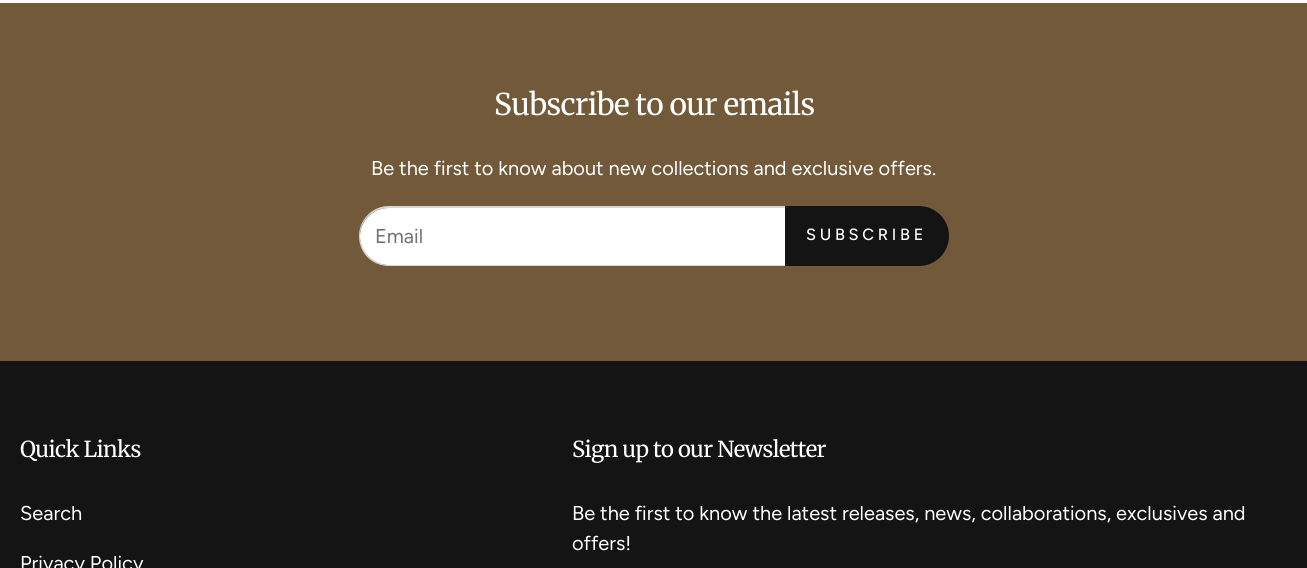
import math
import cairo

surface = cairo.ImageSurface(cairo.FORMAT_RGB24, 1307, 568)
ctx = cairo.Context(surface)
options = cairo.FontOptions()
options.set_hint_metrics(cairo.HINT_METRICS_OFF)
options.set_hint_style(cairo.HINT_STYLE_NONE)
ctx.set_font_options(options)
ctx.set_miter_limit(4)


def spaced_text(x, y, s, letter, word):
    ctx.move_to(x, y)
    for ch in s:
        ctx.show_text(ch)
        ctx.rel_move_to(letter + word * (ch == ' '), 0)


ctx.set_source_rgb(1, 1, 1)
ctx.paint()
ctx.set_source_rgb(0.443, 0.349, 0.224)
ctx.rectangle(0, 3, 1307, 358)
ctx.fill()
ctx.select_font_face("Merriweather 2")
ctx.set_font_size(30)
ctx.set_source_rgb(1, 1, 1)
spaced_text(494, 115, "Subscribe to our emails", -0.6, 0)
ctx.select_font_face("Figtree")
ctx.set_font_size(20)
ctx.move_to(371, 175)
ctx.show_text("Be the first to know about new collections and exclusive offers.")
ctx.new_path()
ctx.move_to(388.5, 208)
ctx.line_to(785, 208)
ctx.line_to(785, 265)
ctx.line_to(388.5, 265)
ctx.curve_to(373, 265, 360, 252, 360, 236.5)
ctx.curve_to(360, 221, 373, 208, 388.5, 208)
ctx.close_path()
ctx.fill()
ctx.set_source_rgb(0.839, 0.839, 0.839)
ctx.set_fill_rule(cairo.FILL_RULE_EVEN_ODD)
ctx.new_path()
ctx.move_to(389, 206)
ctx.line_to(785, 206)
ctx.line_to(785, 266)
ctx.line_to(389, 266)
ctx.curve_to(372, 266, 359, 253, 359, 236)
ctx.curve_to(359, 220, 372, 206, 389, 206)
ctx.close_path()
ctx.move_to(389, 208)
ctx.line_to(785, 208)
ctx.line_to(785, 265)
ctx.line_to(389, 265)
ctx.curve_to(373, 265, 360, 252, 360, 236)
ctx.curve_to(360, 220, 373, 208, 389, 208)
ctx.close_path()
ctx.fill()
ctx.set_source_rgb(0.443, 0.443, 0.443)
ctx.move_to(375, 243)
ctx.show_text("Email")
ctx.set_source_rgb(0.082, 0.082, 0.082)
ctx.new_path()
ctx.move_to(785, 206)
ctx.line_to(919, 206)
ctx.curve_to(935.5, 206, 949, 219.5, 949, 236)
ctx.curve_to(949, 252.5, 935.5, 266, 919, 266)
ctx.line_to(785, 266)
ctx.close_path()
ctx.fill()
ctx.select_font_face("Figtree Medium")
ctx.set_font_size(16.25)
ctx.set_source_rgb(1, 1, 1)
spaced_text(806, 240, "SUBSCRIBE", 3.75, 0)
ctx.set_source_rgb(0.082, 0.082, 0.082)
ctx.rectangle(0, 361, 1307, 207)
ctx.fill()
ctx.select_font_face("Merriweather")
ctx.set_font_size(22)
ctx.set_source_rgb(1, 1, 1)
spaced_text(20, 457, "Quick Links", -0.6, 0)
ctx.select_font_face("Figtree")
ctx.set_font_size(20)
ctx.move_to(20, 520)
ctx.show_text("Search")
ctx.move_to(20, 570)
ctx.show_text("Privacy Policy")
ctx.select_font_face("Merriweather")
ctx.set_font_size(22)
spaced_text(572, 457, "Sign up to our Newsletter", -0.6, 0)
ctx.select_font_face("Figtree")
ctx.set_font_size(20)
ctx.move_to(572, 520)
ctx.show_text("Be the first to know the latest releases, news, collaborations, exclusives and")
ctx.move_to(572, 550)
ctx.show_text("offers!")
surface.write_to_png("page.png")
